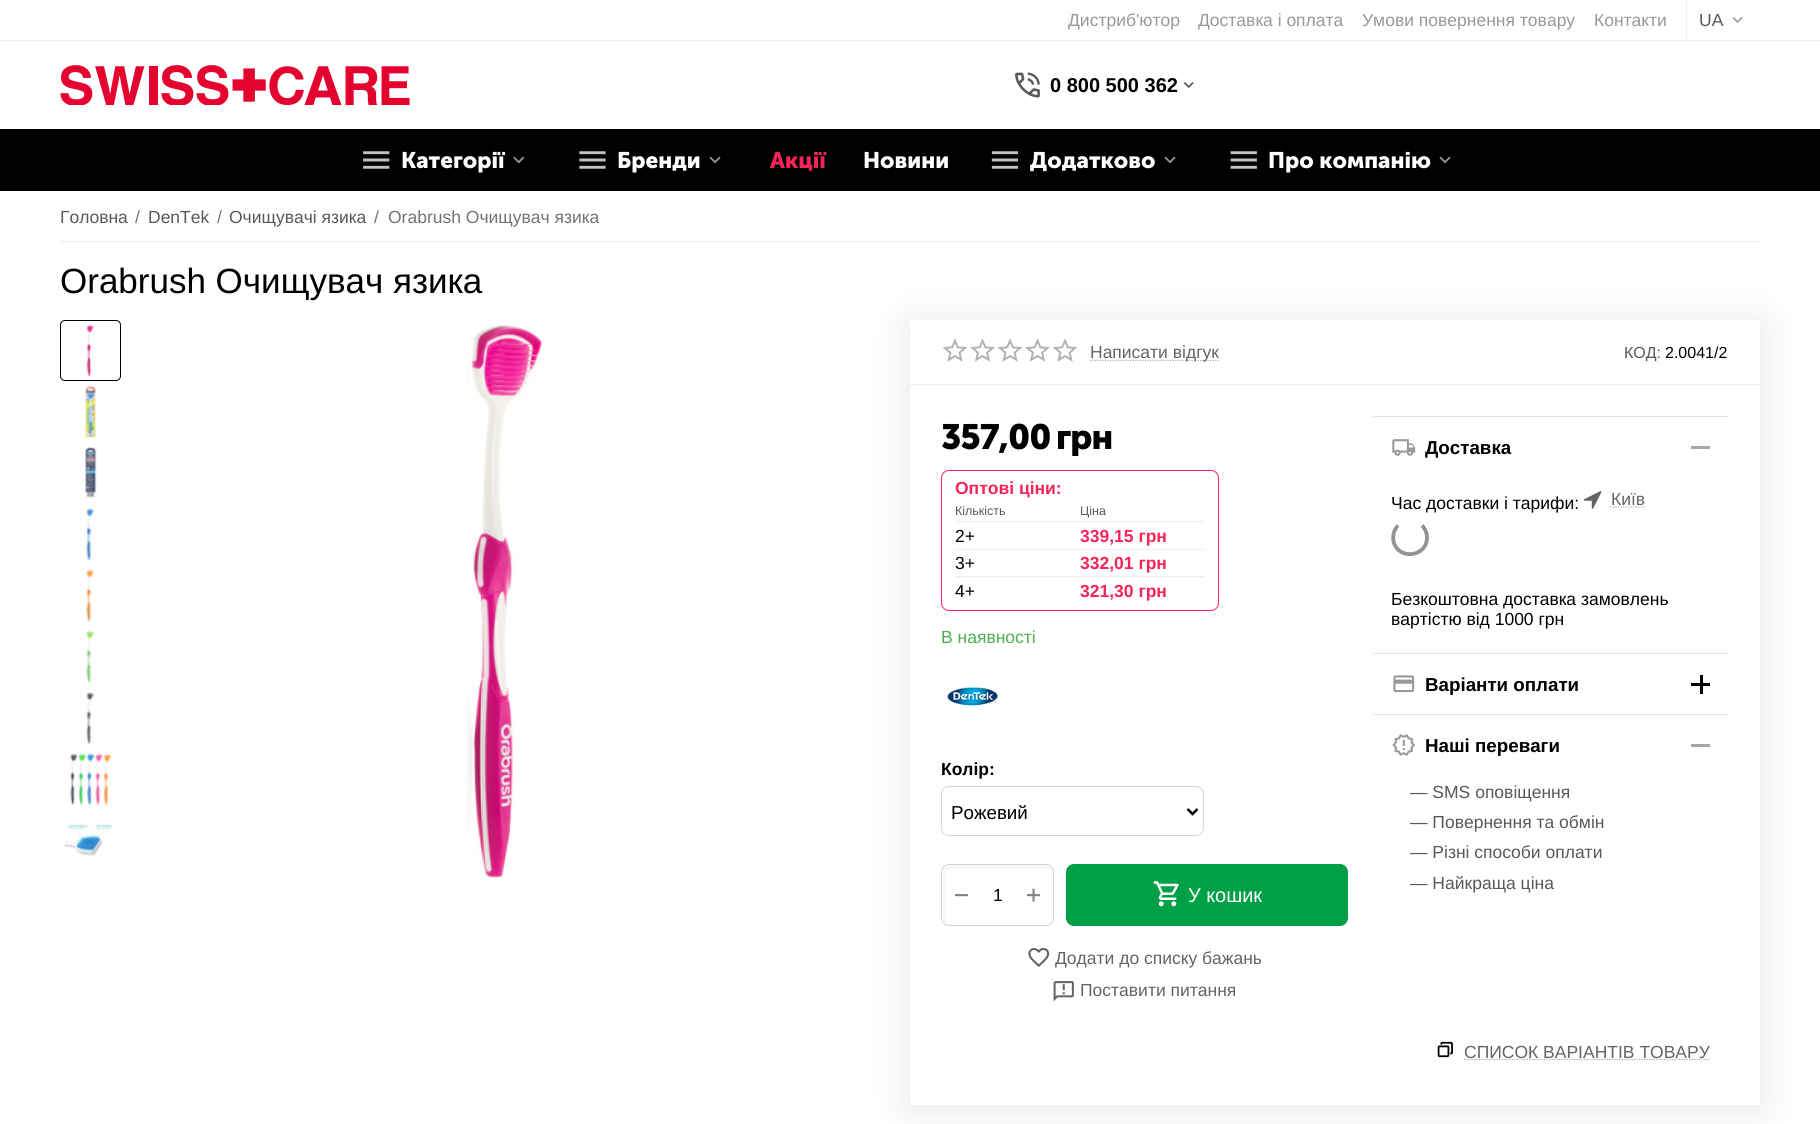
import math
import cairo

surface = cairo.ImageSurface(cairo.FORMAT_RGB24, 1820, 1124)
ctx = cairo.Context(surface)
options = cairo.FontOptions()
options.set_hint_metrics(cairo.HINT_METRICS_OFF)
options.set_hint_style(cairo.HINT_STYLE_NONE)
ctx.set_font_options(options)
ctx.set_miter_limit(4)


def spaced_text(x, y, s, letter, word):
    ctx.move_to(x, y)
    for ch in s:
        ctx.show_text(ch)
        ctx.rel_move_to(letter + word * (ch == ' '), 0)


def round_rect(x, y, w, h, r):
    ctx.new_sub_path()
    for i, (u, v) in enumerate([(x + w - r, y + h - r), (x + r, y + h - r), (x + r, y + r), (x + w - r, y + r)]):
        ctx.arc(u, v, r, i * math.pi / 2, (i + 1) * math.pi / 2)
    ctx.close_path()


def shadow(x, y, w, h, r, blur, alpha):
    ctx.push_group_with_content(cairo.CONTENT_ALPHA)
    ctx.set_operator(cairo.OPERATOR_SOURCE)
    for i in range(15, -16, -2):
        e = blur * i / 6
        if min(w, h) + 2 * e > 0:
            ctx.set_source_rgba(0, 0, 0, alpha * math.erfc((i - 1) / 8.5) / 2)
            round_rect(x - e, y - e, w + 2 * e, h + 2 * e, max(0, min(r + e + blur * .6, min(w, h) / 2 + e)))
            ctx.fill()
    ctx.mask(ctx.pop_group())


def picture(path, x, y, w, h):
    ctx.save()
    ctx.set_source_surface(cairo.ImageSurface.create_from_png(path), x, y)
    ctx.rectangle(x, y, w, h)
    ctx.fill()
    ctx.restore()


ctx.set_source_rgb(1, 1, 1)
ctx.paint()
ctx.set_source_rgb(0.933, 0.933, 0.933)
ctx.rectangle(0, 40, 1820, 1)
ctx.fill()
ctx.select_font_face("Liberation Sans")
ctx.set_font_size(17.5)
ctx.set_source_rgb(0.6, 0.6, 0.6)
ctx.move_to(1068, 26)
ctx.show_text("Дистриб'ютор")
ctx.move_to(1198, 26)
ctx.show_text("Доставка і оплата")
ctx.move_to(1362, 26)
ctx.show_text("Умови повернення товару")
ctx.move_to(1594, 26)
ctx.show_text("Контакти")
ctx.set_source_rgb(0.933, 0.933, 0.933)
ctx.rectangle(1686, 0, 1, 40)
ctx.fill()
ctx.set_source_rgb(0.349, 0.349, 0.349)
ctx.move_to(1699, 26)
ctx.show_text("UA")
picture("img1.png", 1732, 17, 11, 6)
picture("img2.png", 60, 65, 350, 40)
picture("img3.png", 1015, 72, 25, 26)
ctx.select_font_face("Liberation Sans", cairo.FONT_SLANT_NORMAL, cairo.FONT_WEIGHT_BOLD)
ctx.set_font_size(20)
ctx.set_source_rgb(0, 0, 0)
ctx.move_to(1050, 92)
ctx.show_text("0 800 500 362")
picture("img4.png", 1183, 82, 11, 6)
ctx.rectangle(0, 129, 1820, 62)
ctx.fill()
picture("img5.png", 363, 151, 27, 18)
ctx.select_font_face("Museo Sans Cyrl", cairo.FONT_SLANT_NORMAL, cairo.FONT_WEIGHT_BOLD)
ctx.set_font_size(22.5)
ctx.set_source_rgb(1, 1, 1)
ctx.move_to(401, 168)
ctx.show_text("Категорії")
picture("img6.png", 513, 156, 12, 8)
picture("img7.png", 579, 151, 27, 18)
ctx.move_to(617, 168)
ctx.show_text("Бренди")
picture("img8.png", 709, 156, 12, 8)
ctx.set_source_rgb(0.965, 0.141, 0.349)
ctx.move_to(770, 168)
ctx.show_text("Акції")
ctx.set_source_rgb(1, 1, 1)
ctx.move_to(863, 168)
ctx.show_text("Новини")
picture("img9.png", 991, 151, 28, 18)
ctx.move_to(1030, 168)
ctx.show_text("Додатково")
picture("img8.png", 1164, 156, 12, 8)
picture("img10.png", 1230, 151, 27, 18)
ctx.move_to(1268, 168)
ctx.show_text("Про компанію")
picture("img8.png", 1439, 156, 12, 8)
ctx.set_source_rgb(0.933, 0.933, 0.933)
ctx.rectangle(60, 241, 1700, 1)
ctx.fill()
ctx.select_font_face("Liberation Sans")
ctx.set_font_size(17.5)
ctx.set_source_rgb(0.349, 0.349, 0.349)
ctx.move_to(60, 223)
ctx.show_text("Головна")
ctx.set_source_rgb(0.451, 0.451, 0.451)
ctx.move_to(135, 223)
ctx.show_text("/")
ctx.set_source_rgb(0.349, 0.349, 0.349)
ctx.move_to(148, 223)
ctx.show_text("DenTek")
ctx.set_source_rgb(0.451, 0.451, 0.451)
ctx.move_to(217, 223)
ctx.show_text("/")
ctx.set_source_rgb(0.349, 0.349, 0.349)
ctx.move_to(229, 223)
ctx.show_text("Очищувачі язика")
ctx.set_source_rgb(0.451, 0.451, 0.451)
ctx.move_to(374, 223)
ctx.show_text("/")
ctx.move_to(388, 223)
ctx.show_text("Orabrush Очищувач язика")
ctx.set_font_size(35)
ctx.set_source_rgb(0, 0, 0)
ctx.move_to(60, 293)
ctx.show_text("Orabrush Очищувач язика")
round_rect(60.5, 320.5, 60, 60, 4.5)
ctx.set_line_width(1)
ctx.stroke()
picture("img11.png", 86, 325, 8, 52)
picture("img12.png", 85, 385, 12, 53)
picture("img13.png", 85, 447, 12, 51)
picture("img14.png", 86, 508, 9, 53)
picture("img15.png", 86, 569, 9, 53)
picture("img16.png", 86, 630, 9, 53)
picture("img17.png", 86, 692, 9, 53)
picture("img18.png", 69, 753, 43, 53)
picture("img19.png", 64, 824, 49, 32)
picture("img20.png", 466, 325, 77, 553)
ctx.save()
ctx.set_fill_rule(cairo.FILL_RULE_EVEN_ODD)
ctx.new_path()
ctx.move_to(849, 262)
ctx.line_to(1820, 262)
ctx.line_to(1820, 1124)
ctx.line_to(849, 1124)
ctx.close_path()
ctx.move_to(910, 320)
ctx.line_to(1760, 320)
ctx.line_to(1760, 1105)
ctx.line_to(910, 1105)
ctx.close_path()
ctx.clip()
ctx.set_source_rgb(0, 0, 0)
shadow(910, 323, 850, 785, 0, 20, 0.1)
ctx.restore()
ctx.set_source_rgb(0.933, 0.933, 0.933)
ctx.rectangle(910, 384, 850, 1)
ctx.fill()
picture("img21.png", 942, 338, 136, 24)
ctx.new_path()
ctx.move_to(1090, 360.5)
ctx.line_to(1219, 360.5)
ctx.set_source_rgb(0.694, 0.694, 0.694)
ctx.set_line_width(1.2)
ctx.set_dash([1.25, 1.25])
ctx.stroke()
ctx.set_font_size(17.5)
ctx.set_source_rgb(0.392, 0.392, 0.392)
ctx.move_to(1090, 358)
ctx.show_text("Написати відгук")
ctx.set_font_size(16)
ctx.set_source_rgb(0.349, 0.349, 0.349)
ctx.move_to(1624, 358)
ctx.show_text("КОД:")
ctx.set_source_rgb(0, 0, 0)
ctx.move_to(1665, 358)
ctx.show_text("2.0041/2")
ctx.select_font_face("Museo Sans Cyrl", cairo.FONT_SLANT_NORMAL, cairo.FONT_WEIGHT_BOLD)
ctx.set_font_size(35)
spaced_text(941, 449, "357,00", -1, 0)
spaced_text(1056, 449, "грн", -1, 0)
round_rect(941.5, 470.5, 277, 140, 7.5)
ctx.set_source_rgb(0.965, 0.141, 0.349)
ctx.set_line_width(1)
ctx.set_dash([])
ctx.stroke()
ctx.select_font_face("Liberation Sans", cairo.FONT_SLANT_NORMAL, cairo.FONT_WEIGHT_BOLD)
ctx.set_font_size(17.5)
ctx.move_to(955, 494)
ctx.show_text("Оптові ціни:")
ctx.select_font_face("Liberation Sans")
ctx.set_font_size(12.5)
ctx.set_source_rgb(0.349, 0.349, 0.349)
ctx.move_to(955, 515)
ctx.show_text("Кількість")
ctx.set_source_rgb(0.933, 0.933, 0.933)
ctx.rectangle(955, 521, 250, 1)
ctx.fill()
ctx.set_font_size(17.5)
ctx.set_source_rgb(0, 0, 0)
ctx.move_to(955, 542)
ctx.show_text("2+")
ctx.set_source_rgb(0.933, 0.933, 0.933)
ctx.rectangle(955, 549, 250, 1)
ctx.fill()
ctx.set_source_rgb(0, 0, 0)
ctx.move_to(955, 569)
ctx.show_text("3+")
ctx.set_source_rgb(0.933, 0.933, 0.933)
ctx.rectangle(955, 576, 250, 1)
ctx.fill()
ctx.set_source_rgb(0, 0, 0)
ctx.move_to(955, 597)
ctx.show_text("4+")
ctx.set_font_size(12.5)
ctx.set_source_rgb(0.349, 0.349, 0.349)
ctx.move_to(1080, 515)
ctx.show_text("Ціна")
ctx.select_font_face("Liberation Sans", cairo.FONT_SLANT_NORMAL, cairo.FONT_WEIGHT_BOLD)
ctx.set_font_size(17.5)
ctx.set_source_rgb(0.965, 0.141, 0.349)
ctx.move_to(1080, 542)
ctx.show_text("339,15 грн")
ctx.move_to(1080, 569)
ctx.show_text("332,01 грн")
ctx.move_to(1080, 597)
ctx.show_text("321,30 грн")
ctx.select_font_face("Liberation Sans")
ctx.set_source_rgb(0.298, 0.686, 0.314)
ctx.move_to(941, 643)
ctx.show_text("В наявності")
picture("img22.png", 947, 687, 51, 19)
ctx.select_font_face("Liberation Sans", cairo.FONT_SLANT_NORMAL, cairo.FONT_WEIGHT_BOLD)
ctx.set_source_rgb(0, 0, 0)
ctx.move_to(941, 775)
ctx.show_text("Колір:")
round_rect(941.5, 786.5, 262, 49, 7.5)
ctx.set_source_rgb(0.835, 0.835, 0.835)
ctx.stroke()
ctx.new_path()
ctx.move_to(1187.5, 809)
ctx.line_to(1192.5, 814)
ctx.line_to(1197.5, 809)
ctx.set_source_rgb(0, 0, 0)
ctx.set_line_width(2.5)
ctx.stroke()
ctx.select_font_face("Liberation Sans")
ctx.set_font_size(18.75)
ctx.move_to(951, 819)
ctx.show_text("Рожевий")
ctx.set_source_rgb(0.969, 0.969, 0.969)
ctx.new_path()
ctx.move_to(952, 869)
ctx.line_to(1050, 869)
ctx.line_to(1053, 870)
ctx.curve_to(1052, 867, 1050, 865, 1047, 865)
ctx.line_to(949, 865)
ctx.curve_to(946, 865, 943, 868, 943, 871)
ctx.line_to(943, 919)
ctx.curve_to(943, 921, 944, 923, 946, 924)
ctx.line_to(946, 883)
ctx.curve_to(946, 879, 945, 869, 952, 869)
ctx.close_path()
ctx.fill()
round_rect(941.5, 864.5, 112, 61, 7.5)
ctx.set_source_rgb(0.835, 0.835, 0.835)
ctx.set_line_width(1)
ctx.stroke()
ctx.select_font_face("DejaVu Sans Mono")
ctx.set_font_size(25)
ctx.set_source_rgb(0.502, 0.502, 0.502)
ctx.move_to(954, 903)
ctx.show_text("−")
ctx.select_font_face("Liberation Sans")
ctx.set_font_size(17.5)
ctx.set_source_rgb(0, 0, 0)
ctx.move_to(993, 901)
ctx.show_text("1")
ctx.select_font_face("DejaVu Sans Mono")
ctx.set_font_size(25)
ctx.set_source_rgb(0.502, 0.502, 0.502)
ctx.move_to(1026, 903)
ctx.show_text("+")
ctx.set_source_rgb(0, 0.627, 0.275)
round_rect(1066, 864, 282, 62, 8)
ctx.fill()
picture("img23.png", 1153, 881, 26, 26)
ctx.select_font_face("Liberation Sans")
ctx.set_font_size(20)
ctx.set_source_rgb(1, 1, 1)
ctx.move_to(1188, 902)
ctx.show_text("У кошик")
picture("img24.png", 1028, 948, 22, 19)
ctx.set_font_size(17.5)
ctx.set_source_rgb(0.392, 0.392, 0.392)
ctx.move_to(1055, 964)
ctx.show_text("Додати до списку бажань")
picture("img25.png", 1053, 981, 21, 21)
ctx.move_to(1080, 996)
ctx.show_text("Поставити питання")
ctx.set_source_rgb(0.882, 0.882, 0.882)
ctx.rectangle(1373, 416, 356, 1)
ctx.fill()
picture("img26.png", 1392, 439, 24, 17)
ctx.select_font_face("Liberation Sans", cairo.FONT_SLANT_NORMAL, cairo.FONT_WEIGHT_BOLD)
ctx.set_font_size(18.75)
ctx.set_source_rgb(0, 0, 0)
ctx.move_to(1425, 454)
ctx.show_text("Доставка")
ctx.set_source_rgb(0.651, 0.651, 0.651)
ctx.rectangle(1691, 446, 19, 3)
ctx.fill()
ctx.select_font_face("Liberation Sans")
ctx.set_font_size(17.5)
ctx.set_source_rgb(0, 0, 0)
ctx.move_to(1391, 509)
ctx.show_text("Час доставки і тарифи:")
picture("img27.png", 1583, 491, 19, 18)
ctx.set_source_rgb(0.392, 0.392, 0.392)
ctx.move_to(1611, 505)
ctx.show_text("Київ")
ctx.new_path()
ctx.move_to(1610.5, 507)
ctx.line_to(1645, 507)
ctx.set_source_rgb(0.694, 0.694, 0.694)
ctx.set_line_width(1.2)
ctx.set_dash([1.25, 1.25])
ctx.stroke()
ctx.new_path()
ctx.move_to(1422, 525.5)
ctx.curve_to(1425, 528.5, 1427, 533, 1427, 537.5)
ctx.curve_to(1427, 557.5, 1397.5, 560.5, 1393.5, 541)
ctx.curve_to(1392.5, 535.5, 1394, 529.5, 1398, 525.5)
ctx.set_source_rgb(0.573, 0.573, 0.573)
ctx.set_line_width(3.8)
ctx.set_dash([])
ctx.stroke()
ctx.set_source_rgb(0, 0, 0)
ctx.move_to(1391, 605)
ctx.show_text("Безкоштовна доставка замовлень")
ctx.move_to(1391, 625)
ctx.show_text("вартістю від 1000 грн")
ctx.set_source_rgb(0.882, 0.882, 0.882)
ctx.rectangle(1373, 653, 356, 1)
ctx.fill()
picture("img28.png", 1393, 675, 22, 18)
ctx.select_font_face("Liberation Sans", cairo.FONT_SLANT_NORMAL, cairo.FONT_WEIGHT_BOLD)
ctx.set_font_size(18.75)
ctx.set_source_rgb(0, 0, 0)
ctx.move_to(1425, 691)
ctx.show_text("Варіанти оплати")
ctx.rectangle(1700, 675, 3, 19)
ctx.fill()
ctx.rectangle(1691, 683, 19, 3)
ctx.fill()
ctx.set_source_rgb(0.882, 0.882, 0.882)
ctx.rectangle(1373, 714, 356, 1)
ctx.fill()
picture("img29.png", 1392, 734, 23, 22)
ctx.set_source_rgb(0, 0, 0)
ctx.move_to(1425, 752)
ctx.show_text("Наші переваги")
ctx.set_source_rgb(0.651, 0.651, 0.651)
ctx.rectangle(1691, 744, 19, 3)
ctx.fill()
ctx.select_font_face("Liberation Sans")
ctx.set_font_size(17.5)
ctx.set_source_rgb(0.349, 0.349, 0.349)
ctx.move_to(1410, 798)
ctx.show_text("— SMS оповіщення")
ctx.move_to(1410, 828)
ctx.show_text("— Повернення та обмін")
ctx.move_to(1410, 858)
ctx.show_text("— Різні способи оплати")
ctx.move_to(1410, 889)
ctx.show_text("— Найкраща ціна")
picture("img30.png", 1437, 1041, 16, 17)
ctx.new_path()
ctx.move_to(1464, 1059.5)
ctx.line_to(1710, 1059.5)
ctx.set_source_rgb(0.694, 0.694, 0.694)
ctx.set_line_width(1.2)
ctx.set_dash([1.25, 1.25])
ctx.stroke()
ctx.set_source_rgb(0.392, 0.392, 0.392)
ctx.move_to(1464, 1058)
ctx.show_text("СПИСОК ВАРІАНТІВ ТОВАРУ")
surface.write_to_png("page.png")
